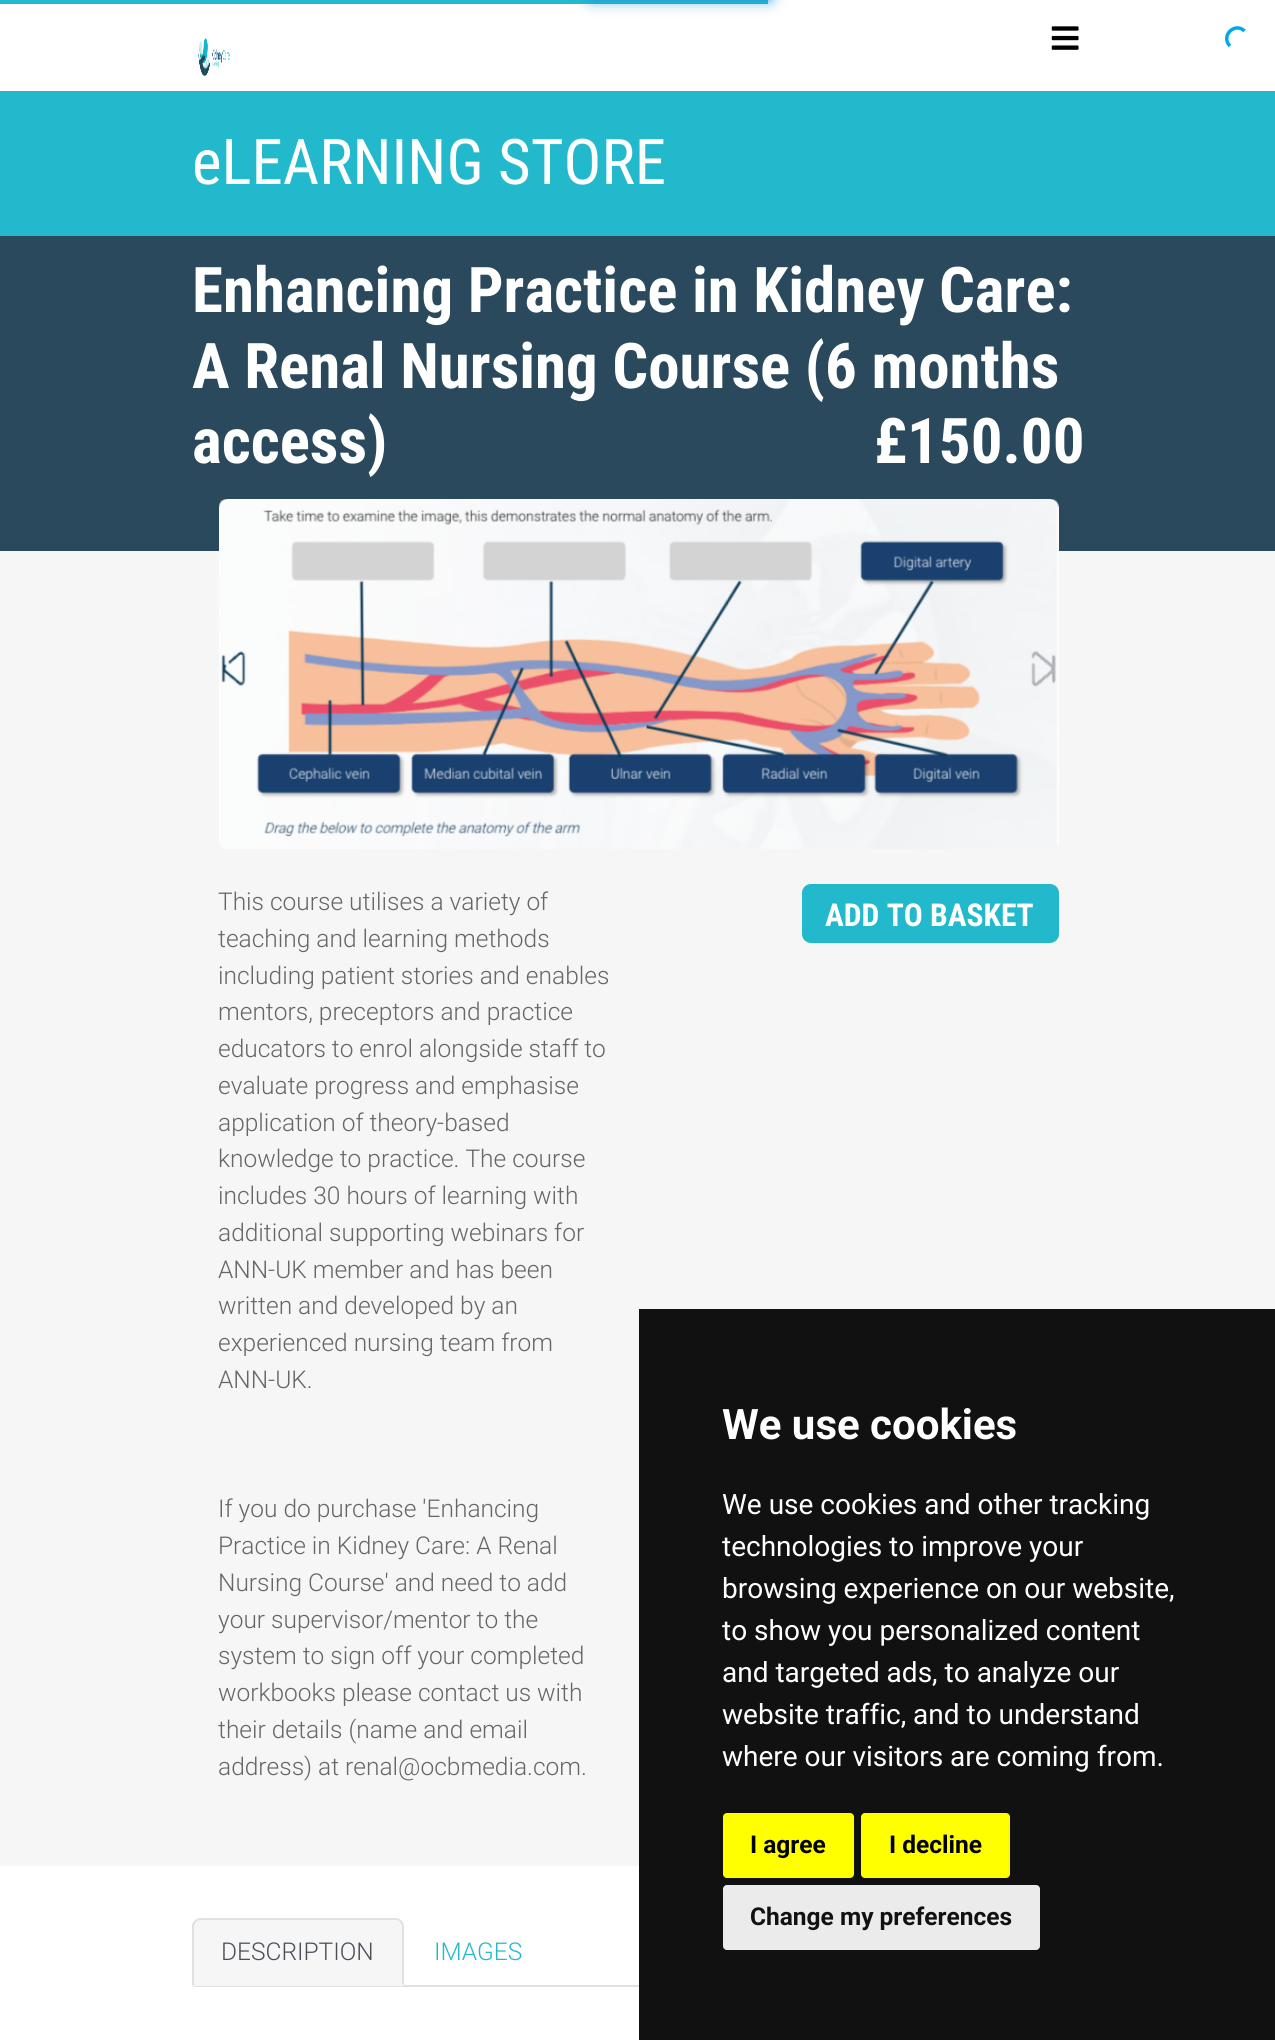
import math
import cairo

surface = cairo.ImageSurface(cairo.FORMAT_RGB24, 1275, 2040)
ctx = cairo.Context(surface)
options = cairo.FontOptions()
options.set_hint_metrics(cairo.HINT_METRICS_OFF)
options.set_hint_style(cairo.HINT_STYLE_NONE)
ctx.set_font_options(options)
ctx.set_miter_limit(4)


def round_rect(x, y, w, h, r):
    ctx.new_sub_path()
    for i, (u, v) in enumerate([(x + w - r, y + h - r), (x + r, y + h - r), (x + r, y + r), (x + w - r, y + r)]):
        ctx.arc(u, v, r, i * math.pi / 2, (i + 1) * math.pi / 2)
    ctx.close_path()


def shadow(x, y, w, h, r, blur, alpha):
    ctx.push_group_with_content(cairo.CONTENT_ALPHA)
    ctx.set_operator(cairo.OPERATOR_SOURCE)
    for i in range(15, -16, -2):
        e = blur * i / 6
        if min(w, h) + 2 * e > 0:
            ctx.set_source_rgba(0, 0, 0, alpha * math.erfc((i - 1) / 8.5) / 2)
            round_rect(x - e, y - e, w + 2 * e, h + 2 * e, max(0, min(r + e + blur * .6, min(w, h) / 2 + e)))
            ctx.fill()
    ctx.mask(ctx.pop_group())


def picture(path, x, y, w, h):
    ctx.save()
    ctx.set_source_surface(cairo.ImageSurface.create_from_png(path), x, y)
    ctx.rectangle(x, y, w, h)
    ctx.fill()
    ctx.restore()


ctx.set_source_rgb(0.961, 0.961, 0.961)
ctx.paint()
ctx.set_source_rgb(1, 1, 1)
ctx.rectangle(0, 0, 1275, 91)
ctx.fill()
picture("img1.png", 198, 38, 32, 38)
picture("img2.png", 1051, 26, 28, 24)
ctx.set_source_rgb(0.137, 0.725, 0.804)
ctx.rectangle(0, 0, 768, 4)
ctx.fill()
ctx.set_source_rgb(0.133, 0.6, 0.867)
shadow(593, -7, 175, 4, 0, 4.5, 1)
shadow(593, -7, 175, 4, 0, 9, 1)
ctx.new_path()
ctx.move_to(1230, 46)
ctx.curve_to(1220, 36, 1235, 21.5, 1244.5, 31)
ctx.set_source_rgb(0, 0.667, 0.902)
ctx.set_line_width(3.5)
ctx.stroke()
ctx.set_source_rgb(0.137, 0.725, 0.804)
ctx.rectangle(0, 91, 1275, 145)
ctx.fill()
ctx.select_font_face("Roboto Condensed")
ctx.set_font_size(63)
ctx.set_source_rgb(1, 1, 1)
ctx.move_to(192, 184)
ctx.show_text("eLEARNING STORE")
ctx.set_source_rgb(0.165, 0.286, 0.365)
ctx.rectangle(0, 236, 1275, 315)
ctx.fill()
ctx.select_font_face("Roboto Condensed", cairo.FONT_SLANT_NORMAL, cairo.FONT_WEIGHT_BOLD)
ctx.set_source_rgb(1, 1, 1)
ctx.move_to(192, 312)
ctx.show_text("Enhancing Practice in Kidney Care:")
ctx.move_to(192, 388)
ctx.show_text("A Renal Nursing Course (6 months")
ctx.move_to(192, 463)
ctx.show_text("access)")
ctx.move_to(874, 463)
ctx.show_text("£150.00")
picture("img3.png", 219, 499, 840, 350)
ctx.select_font_face("Roboto Light")
ctx.set_font_size(24.5)
ctx.set_source_rgb(0.4, 0.4, 0.4)
ctx.move_to(218, 910)
ctx.show_text("This course utilises a variety of")
ctx.move_to(218, 947)
ctx.show_text("teaching and learning methods")
ctx.move_to(218, 984)
ctx.show_text("including patient stories and enables")
ctx.move_to(218, 1020)
ctx.show_text("mentors, preceptors and practice")
ctx.move_to(218, 1057)
ctx.show_text("educators to enrol alongside staff to")
ctx.move_to(218, 1094)
ctx.show_text("evaluate progress and emphasise")
ctx.move_to(218, 1131)
ctx.show_text("application of theory-based")
ctx.move_to(218, 1167)
ctx.show_text("knowledge to practice. The course")
ctx.move_to(218, 1204)
ctx.show_text("includes 30 hours of learning with")
ctx.move_to(218, 1241)
ctx.show_text("additional supporting webinars for")
ctx.move_to(218, 1278)
ctx.show_text("ANN-UK member and has been")
ctx.move_to(218, 1314)
ctx.show_text("written and developed by an")
ctx.move_to(218, 1351)
ctx.show_text("experienced nursing team from")
ctx.move_to(218, 1388)
ctx.show_text("ANN-UK.")
ctx.move_to(218, 1517)
ctx.show_text("If you do purchase 'Enhancing")
ctx.move_to(218, 1554)
ctx.show_text("Practice in Kidney Care: A Renal")
ctx.move_to(218, 1591)
ctx.show_text("Nursing Course' and need to add")
ctx.move_to(218, 1628)
ctx.show_text("your supervisor/mentor to the")
ctx.move_to(218, 1664)
ctx.show_text("system to sign off your completed")
ctx.move_to(218, 1701)
ctx.show_text("workbooks please contact us with")
ctx.move_to(218, 1738)
ctx.show_text("their details (name and email")
ctx.move_to(218, 1775)
ctx.show_text("address) at renal@ocbmedia.com.")
ctx.set_source_rgb(0.137, 0.725, 0.804)
round_rect(803, 885, 255, 57, 8)
ctx.fill_preserve()
ctx.set_line_width(2)
ctx.stroke()
ctx.select_font_face("Roboto Condensed", cairo.FONT_SLANT_NORMAL, cairo.FONT_WEIGHT_BOLD)
ctx.set_font_size(31.5)
ctx.set_source_rgb(1, 1, 1)
ctx.move_to(825, 926)
ctx.show_text("ADD TO BASKET")
ctx.rectangle(0, 1866, 639, 174)
ctx.fill()
ctx.set_source_rgb(0.871, 0.886, 0.902)
ctx.rectangle(193, 1985, 446, 2)
ctx.fill()
ctx.set_source_rgb(0.961, 0.961, 0.961)
ctx.new_path()
ctx.move_to(202, 1918)
ctx.line_to(395, 1918)
ctx.curve_to(400, 1918, 404, 1922, 404, 1927)
ctx.line_to(404, 1986)
ctx.line_to(193, 1986)
ctx.line_to(193, 1927)
ctx.curve_to(193, 1922, 197, 1918, 202, 1918)
ctx.close_path()
ctx.fill()
ctx.set_source_rgb(0.871, 0.886, 0.902)
ctx.new_path()
ctx.move_to(201, 1918)
ctx.curve_to(199, 1918, 196, 1919, 195, 1920)
ctx.line_to(196, 1922)
ctx.curve_to(197, 1921, 199, 1920, 201, 1920)
ctx.line_to(396, 1920)
ctx.curve_to(398, 1920, 399, 1921, 400, 1922)
ctx.line_to(402, 1921)
ctx.curve_to(400, 1919, 398, 1918, 396, 1918)
ctx.close_path()
ctx.fill()
ctx.new_path()
ctx.move_to(402, 1921)
ctx.curve_to(403, 1922, 404, 1925, 404, 1927)
ctx.line_to(404, 1986)
ctx.line_to(402, 1984)
ctx.line_to(402, 1927)
ctx.curve_to(402, 1925, 401, 1923, 400, 1922)
ctx.close_path()
ctx.fill()
ctx.set_source_rgb(0.961, 0.961, 0.961)
ctx.new_path()
ctx.move_to(404, 1986)
ctx.line_to(402, 1984)
ctx.line_to(195, 1984)
ctx.line_to(193, 1986)
ctx.close_path()
ctx.fill()
ctx.set_source_rgb(0.871, 0.886, 0.902)
ctx.new_path()
ctx.move_to(192, 1924)
ctx.line_to(195, 1920)
ctx.line_to(196, 1922)
ctx.curve_to(195, 1923, 194, 1925, 194, 1927)
ctx.line_to(194, 1984)
ctx.line_to(195, 1984)
ctx.line_to(192, 1986)
ctx.close_path()
ctx.fill()
ctx.select_font_face("Roboto Light")
ctx.set_font_size(24.5)
ctx.set_source_rgb(0.286, 0.314, 0.341)
ctx.move_to(221, 1960)
ctx.show_text("DESCRIPTION")
ctx.set_source_rgb(0.137, 0.725, 0.804)
ctx.move_to(434, 1960)
ctx.show_text("IMAGES")
ctx.set_source_rgb(0.067, 0.067, 0.067)
ctx.rectangle(639, 1309, 636, 731)
ctx.fill()
ctx.select_font_face("Roboto", cairo.FONT_SLANT_NORMAL, cairo.FONT_WEIGHT_BOLD)
ctx.set_font_size(42)
ctx.set_source_rgb(1, 1, 1)
ctx.move_to(722, 1439)
ctx.show_text("We use cookies")
ctx.select_font_face("Roboto")
ctx.set_font_size(28)
ctx.move_to(722, 1514)
ctx.show_text("We use cookies and other tracking")
ctx.move_to(722, 1556)
ctx.show_text("technologies to improve your")
ctx.move_to(722, 1598)
ctx.show_text("browsing experience on our website,")
ctx.move_to(722, 1640)
ctx.show_text("to show you personalized content")
ctx.move_to(722, 1682)
ctx.show_text("and targeted ads, to analyze our")
ctx.move_to(722, 1724)
ctx.show_text("website traffic, and to understand")
ctx.move_to(722, 1766)
ctx.show_text("where our visitors are coming from.")
ctx.set_source_rgb(1, 1, 0)
round_rect(723, 1813, 131, 65, 4)
ctx.fill()
ctx.select_font_face("Roboto", cairo.FONT_SLANT_NORMAL, cairo.FONT_WEIGHT_BOLD)
ctx.set_font_size(24.5)
ctx.set_source_rgb(0, 0, 0)
ctx.move_to(750, 1853)
ctx.show_text("I agree")
ctx.set_source_rgb(1, 1, 0)
round_rect(861, 1813, 149, 65, 4)
ctx.fill()
ctx.set_source_rgb(0, 0, 0)
ctx.move_to(889, 1853)
ctx.show_text("I decline")
ctx.set_source_rgb(0.918, 0.918, 0.918)
round_rect(723, 1885, 317, 65, 4)
ctx.fill()
ctx.set_source_rgb(0.067, 0.067, 0.067)
ctx.move_to(750, 1925)
ctx.show_text("Change my preferences")
surface.write_to_png("page.png")
